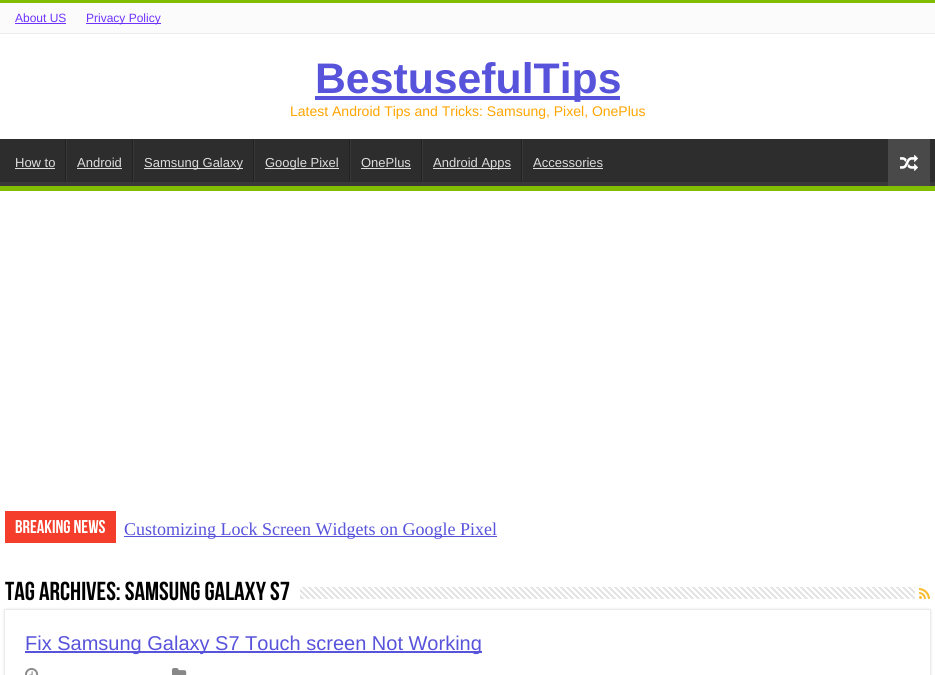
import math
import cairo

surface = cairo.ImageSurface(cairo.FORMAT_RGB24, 935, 675)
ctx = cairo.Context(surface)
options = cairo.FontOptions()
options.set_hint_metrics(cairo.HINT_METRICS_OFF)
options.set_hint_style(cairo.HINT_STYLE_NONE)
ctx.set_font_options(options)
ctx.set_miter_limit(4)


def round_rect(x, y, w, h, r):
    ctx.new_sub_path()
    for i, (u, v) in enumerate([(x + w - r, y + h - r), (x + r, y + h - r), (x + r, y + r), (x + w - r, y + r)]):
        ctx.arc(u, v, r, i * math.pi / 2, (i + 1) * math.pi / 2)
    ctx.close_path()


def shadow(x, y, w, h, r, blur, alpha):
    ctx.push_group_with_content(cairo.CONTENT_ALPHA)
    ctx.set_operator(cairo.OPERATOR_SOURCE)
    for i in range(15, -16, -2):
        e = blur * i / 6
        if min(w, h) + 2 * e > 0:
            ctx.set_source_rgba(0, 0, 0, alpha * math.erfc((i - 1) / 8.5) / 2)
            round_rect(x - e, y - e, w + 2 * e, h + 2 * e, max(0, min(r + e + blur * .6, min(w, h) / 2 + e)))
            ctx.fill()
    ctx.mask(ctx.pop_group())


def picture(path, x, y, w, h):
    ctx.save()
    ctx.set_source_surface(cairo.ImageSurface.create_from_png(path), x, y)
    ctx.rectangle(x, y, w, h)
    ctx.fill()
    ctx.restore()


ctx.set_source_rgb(1, 1, 1)
ctx.paint()
ctx.set_source_rgb(0.506, 0.741, 0)
ctx.rectangle(0, 0, 935, 3)
ctx.fill()
ctx.set_source_rgb(0.984, 0.984, 0.984)
ctx.rectangle(0, 3, 935, 30)
ctx.fill()
ctx.set_source_rgb(0.925, 0.925, 0.925)
ctx.rectangle(0, 33, 935, 1)
ctx.fill()
ctx.select_font_face("Liberation Sans")
ctx.set_font_size(12)
ctx.set_source_rgb(0.439, 0.2, 1)
ctx.move_to(15, 22)
ctx.show_text("About US")
ctx.rectangle(15, 23, 51, 1)
ctx.fill()
ctx.rectangle(86, 23, 75, 1)
ctx.fill()
ctx.move_to(86, 22)
ctx.show_text("Privacy Policy")
ctx.set_source_rgb(0.345, 0.325, 0.859)
ctx.rectangle(315, 96, 305, 4)
ctx.fill()
ctx.select_font_face("Liberation Sans", cairo.FONT_SLANT_NORMAL, cairo.FONT_WEIGHT_BOLD)
ctx.set_font_size(42.75)
ctx.move_to(315, 93)
ctx.show_text("BestusefulTips")
ctx.select_font_face("Liberation Sans")
ctx.set_font_size(14)
ctx.set_source_rgb(1, 0.647, 0)
ctx.move_to(290, 116)
ctx.show_text("Latest Android Tips and Tricks: Samsung, Pixel, OnePlus")
ctx.set_source_rgb(0.176, 0.176, 0.176)
ctx.rectangle(0, 139, 935, 43)
ctx.fill()
ctx.save()
ctx.rectangle(0, 139, 935, 47)
ctx.clip()
ctx.set_source_rgb(0.224, 0.224, 0.224)
ctx.set_fill_rule(cairo.FILL_RULE_EVEN_ODD)
ctx.new_path()
ctx.move_to(-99, 40)
ctx.line_to(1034, 40)
ctx.line_to(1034, 285)
ctx.line_to(-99, 285)
ctx.close_path()
ctx.move_to(-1, 133)
ctx.line_to(934, 133)
ctx.line_to(935, 134)
ctx.line_to(935, 173)
ctx.curve_to(935, 174, 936, 182, 934, 182)
ctx.line_to(-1, 182)
ctx.line_to(-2, 181)
ctx.line_to(-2, 133)
ctx.close_path()
ctx.fill()
ctx.restore()
ctx.set_source_rgb(0.506, 0.741, 0)
ctx.rectangle(0, 186, 935, 5)
ctx.fill()
ctx.set_font_size(13)
ctx.set_source_rgb(0.867, 0.867, 0.867)
ctx.move_to(15, 167)
ctx.show_text("How to")
ctx.rectangle(15, 168, 40, 1)
ctx.fill()
ctx.set_source_rgb(0.133, 0.133, 0.133)
ctx.rectangle(65, 139, 1, 42)
ctx.fill()
ctx.set_source_rgb(0.22, 0.22, 0.22)
ctx.rectangle(66, 139, 1, 42)
ctx.fill()
ctx.set_source_rgb(0.867, 0.867, 0.867)
ctx.move_to(77, 167)
ctx.show_text("Android")
ctx.rectangle(77, 168, 45, 1)
ctx.fill()
ctx.set_source_rgb(0.133, 0.133, 0.133)
ctx.rectangle(132, 139, 1, 42)
ctx.fill()
ctx.set_source_rgb(0.22, 0.22, 0.22)
ctx.rectangle(133, 139, 1, 42)
ctx.fill()
ctx.set_source_rgb(0.867, 0.867, 0.867)
ctx.rectangle(144, 168, 99, 1)
ctx.fill()
ctx.move_to(144, 167)
ctx.show_text("Samsung Galaxy")
ctx.set_source_rgb(0.133, 0.133, 0.133)
ctx.rectangle(253, 139, 1, 42)
ctx.fill()
ctx.set_source_rgb(0.22, 0.22, 0.22)
ctx.rectangle(254, 139, 1, 42)
ctx.fill()
ctx.set_source_rgb(0.867, 0.867, 0.867)
ctx.rectangle(265, 168, 74, 1)
ctx.fill()
ctx.move_to(265, 167)
ctx.show_text("Google Pixel")
ctx.set_source_rgb(0.133, 0.133, 0.133)
ctx.rectangle(349, 139, 1, 42)
ctx.fill()
ctx.set_source_rgb(0.22, 0.22, 0.22)
ctx.rectangle(350, 139, 1, 42)
ctx.fill()
ctx.set_source_rgb(0.867, 0.867, 0.867)
ctx.move_to(361, 167)
ctx.show_text("OnePlus")
ctx.rectangle(361, 168, 50, 1)
ctx.fill()
ctx.set_source_rgb(0.133, 0.133, 0.133)
ctx.rectangle(421, 139, 1, 42)
ctx.fill()
ctx.set_source_rgb(0.22, 0.22, 0.22)
ctx.rectangle(422, 139, 1, 42)
ctx.fill()
ctx.set_source_rgb(0.867, 0.867, 0.867)
ctx.rectangle(433, 168, 78, 1)
ctx.fill()
ctx.move_to(433, 167)
ctx.show_text("Android Apps")
ctx.set_source_rgb(0.133, 0.133, 0.133)
ctx.rectangle(521, 139, 1, 42)
ctx.fill()
ctx.set_source_rgb(0.22, 0.22, 0.22)
ctx.rectangle(522, 139, 1, 42)
ctx.fill()
ctx.set_source_rgb(0.867, 0.867, 0.867)
ctx.move_to(533, 167)
ctx.show_text("Accessories")
ctx.rectangle(533, 168, 70, 1)
ctx.fill()
ctx.set_source_rgb(0.286, 0.286, 0.286)
ctx.rectangle(888, 139, 42, 47)
ctx.fill()
picture("img1.png", 900, 154, 18, 17)
ctx.set_source_rgb(0.957, 0.239, 0.165)
ctx.rectangle(5, 511, 111, 32)
ctx.fill()
ctx.select_font_face("Bebas Neue", cairo.FONT_SLANT_NORMAL, cairo.FONT_WEIGHT_BOLD)
ctx.set_font_size(18.5)
ctx.set_source_rgb(1, 1, 1)
ctx.move_to(15, 533)
ctx.show_text("Breaking News")
ctx.set_source_rgb(0.345, 0.325, 0.859)
ctx.rectangle(124, 536, 373, 1)
ctx.fill()
ctx.select_font_face("Liberation Serif")
ctx.set_font_size(18)
ctx.move_to(124, 535)
ctx.show_text("Customizing Lock Screen Widgets on Google Pixel")
ctx.select_font_face("Bebas Neue", cairo.FONT_SLANT_NORMAL, cairo.FONT_WEIGHT_BOLD)
ctx.set_font_size(26)
ctx.set_source_rgb(0, 0, 0)
ctx.move_to(5, 600)
ctx.show_text("Tag Archives: Samsung galaxy S7")
picture("img2.png", 300, 587, 615, 12)
picture("img3.png", 919, 588, 11, 11)
ctx.save()
ctx.set_fill_rule(cairo.FILL_RULE_EVEN_ODD)
ctx.new_path()
ctx.move_to(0, 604)
ctx.line_to(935, 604)
ctx.line_to(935, 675)
ctx.line_to(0, 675)
ctx.close_path()
ctx.move_to(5, 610)
ctx.line_to(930, 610)
ctx.line_to(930, 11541)
ctx.line_to(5, 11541)
ctx.close_path()
ctx.clip()
ctx.set_source_rgb(0.792, 0.792, 0.792)
shadow(5, 610, 925, 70, 0, 1.5, 1)
ctx.restore()
ctx.set_source_rgb(0.345, 0.325, 0.859)
ctx.rectangle(25, 651, 457, 2)
ctx.fill()
ctx.select_font_face("Liberation Sans")
ctx.set_font_size(20)
ctx.move_to(25, 650)
ctx.show_text("Fix Samsung Galaxy S7 Touch screen Not Working")
picture("img4.png", 25, 668, 14, 7)
picture("img5.png", 172, 668, 15, 7)
surface.write_to_png("page.png")
